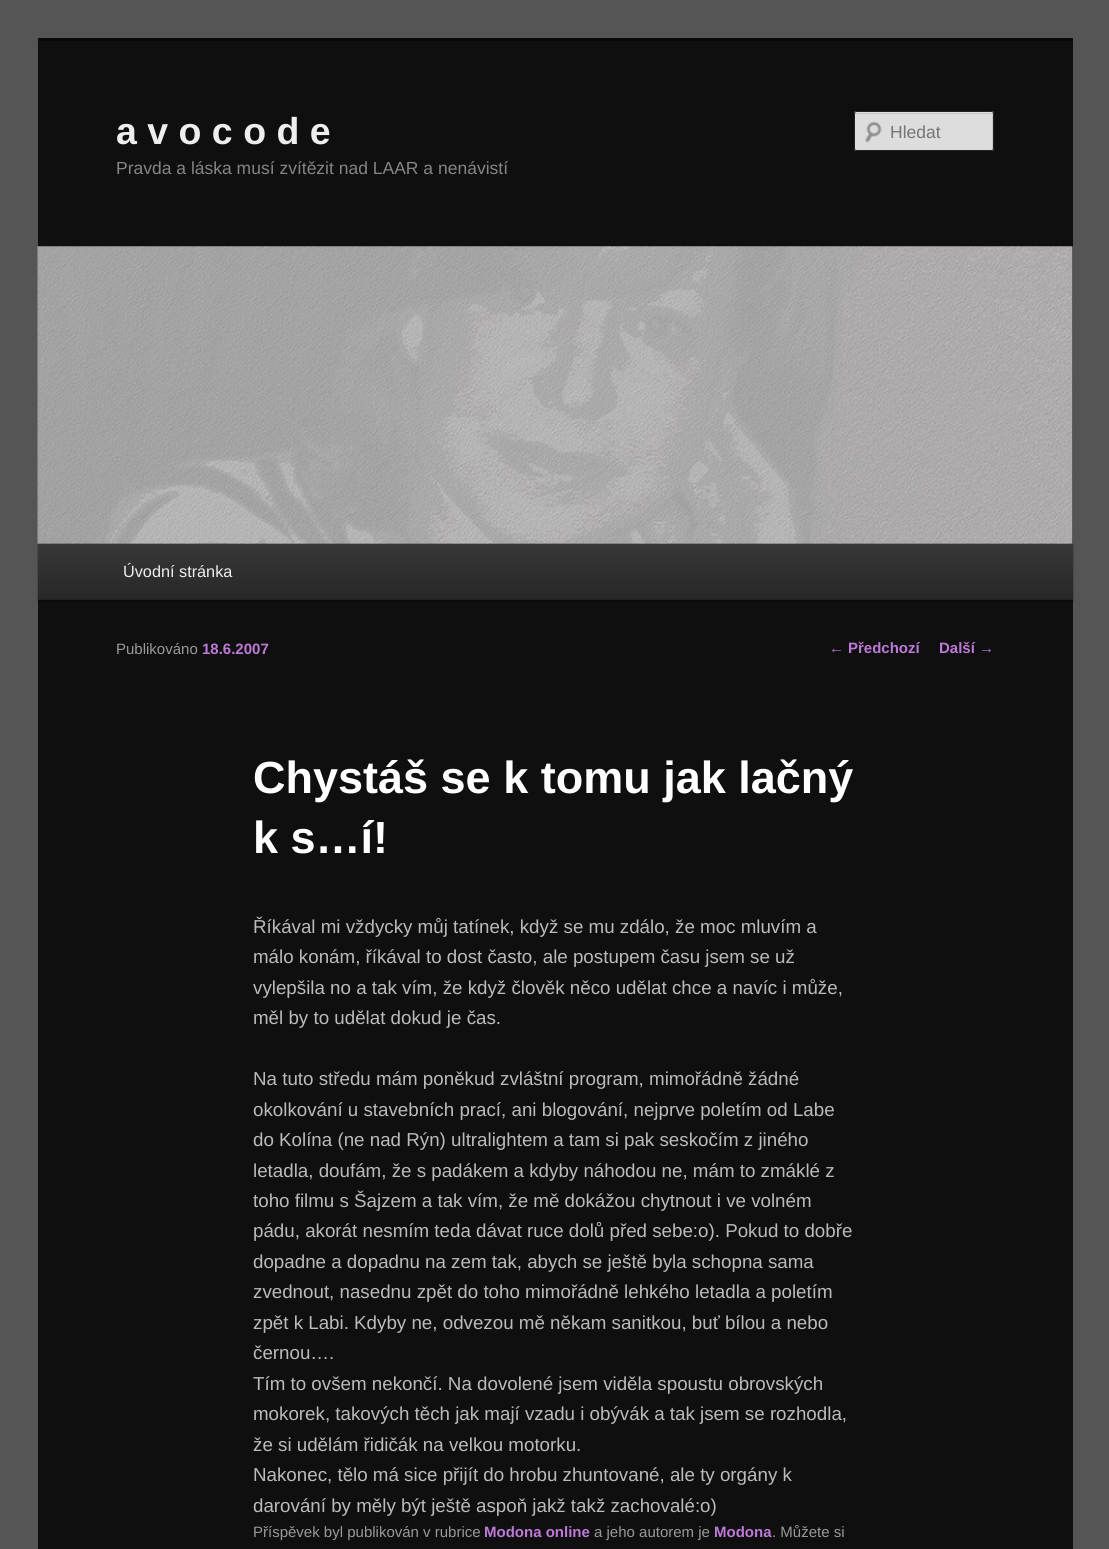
import math
import cairo

surface = cairo.ImageSurface(cairo.FORMAT_RGB24, 1109, 1549)
ctx = cairo.Context(surface)
options = cairo.FontOptions()
options.set_hint_metrics(cairo.HINT_METRICS_OFF)
options.set_hint_style(cairo.HINT_STYLE_NONE)
ctx.set_font_options(options)
ctx.set_miter_limit(4)


def round_rect(x, y, w, h, r):
    ctx.new_sub_path()
    for i, (u, v) in enumerate([(x + w - r, y + h - r), (x + r, y + h - r), (x + r, y + r), (x + w - r, y + r)]):
        ctx.arc(u, v, r, i * math.pi / 2, (i + 1) * math.pi / 2)
    ctx.close_path()


def shadow(x, y, w, h, r, blur, alpha):
    ctx.push_group_with_content(cairo.CONTENT_ALPHA)
    ctx.set_operator(cairo.OPERATOR_SOURCE)
    for i in range(15, -16, -2):
        e = blur * i / 6
        if min(w, h) + 2 * e > 0:
            ctx.set_source_rgba(0, 0, 0, alpha * math.erfc((i - 1) / 8.5) / 2)
            round_rect(x - e, y - e, w + 2 * e, h + 2 * e, max(0, min(r + e + blur * .6, min(w, h) / 2 + e)))
            ctx.fill()
    ctx.mask(ctx.pop_group())


def picture(path, x, y, w, h):
    ctx.save()
    ctx.set_source_surface(cairo.ImageSurface.create_from_png(path), x, y)
    ctx.rectangle(x, y, w, h)
    ctx.fill()
    ctx.restore()


ctx.set_source_rgb(0.337, 0.333, 0.337)
ctx.paint()
ctx.set_source_rgb(0.059, 0.059, 0.059)
ctx.rectangle(38, 41, 1035, 1508)
ctx.fill()
ctx.set_source_rgb(0.039, 0.039, 0.039)
ctx.rectangle(38, 38, 1035, 3)
ctx.fill()
ctx.select_font_face("Liberation Sans", cairo.FONT_SLANT_NORMAL, cairo.FONT_WEIGHT_BOLD)
ctx.set_font_size(37.5)
ctx.set_source_rgb(0.933, 0.933, 0.933)
ctx.move_to(116, 144)
ctx.show_text("a v o c o d e")
ctx.select_font_face("Liberation Sans")
ctx.set_font_size(17.5)
ctx.set_source_rgb(0.522, 0.522, 0.522)
ctx.move_to(116, 174)
ctx.show_text("Pravda a láska musí zvítězit nad LAAR a nenávistí")
ctx.set_source_rgb(0.867, 0.867, 0.867)
round_rect(854, 111, 140, 40, 2.5)
ctx.fill()
picture("img1.png", 865, 121, 17, 22)
ctx.set_source_rgb(0.78, 0.78, 0.78)
ctx.new_path()
ctx.move_to(856, 114)
ctx.line_to(991, 114)
ctx.curve_to(992, 114, 992, 114, 992, 115)
ctx.line_to(992, 150)
ctx.curve_to(993, 150, 993, 150, 993, 149)
ctx.line_to(993, 114)
ctx.curve_to(993, 113, 993, 113, 992, 113)
ctx.line_to(856, 113)
ctx.curve_to(855, 113, 855, 113, 855, 114)
ctx.line_to(855, 115)
ctx.close_path()
ctx.fill()
round_rect(854.5, 111.5, 139, 39, 2)
ctx.set_source_rgb(0.133, 0.133, 0.133)
ctx.set_line_width(1)
ctx.stroke()
ctx.set_source_rgb(0.459, 0.459, 0.459)
ctx.move_to(890, 138)
ctx.show_text("Hledat")
ctx.set_source_rgb(0, 0, 0)
shadow(38, 545, 1035, 56, 0, 1, 0.4)
picture("img2.png", 37, 246, 1036, 298)
gradient = cairo.LinearGradient(555, 544, 555, 599)
gradient.add_color_stop_rgba(0, 0.22, 0.22, 0.22, 1)
gradient.add_color_stop_rgba(1, 0.153, 0.153, 0.153, 1)
ctx.set_source(gradient)
ctx.rectangle(38, 544, 1035, 55)
ctx.fill()
ctx.set_source_rgb(0.133, 0.133, 0.133)
ctx.rectangle(38, 599, 1035, 1)
ctx.fill()
ctx.set_font_size(16.25)
ctx.set_source_rgb(0.933, 0.933, 0.933)
ctx.move_to(123, 577)
ctx.show_text("Úvodní stránka")
ctx.set_font_size(15)
ctx.set_source_rgb(0.6, 0.6, 0.6)
ctx.move_to(116, 654)
ctx.show_text("Publikováno")
ctx.select_font_face("Liberation Sans", cairo.FONT_SLANT_NORMAL, cairo.FONT_WEIGHT_BOLD)
ctx.set_source_rgb(0.741, 0.475, 0.843)
ctx.move_to(202, 654)
ctx.show_text("18.6.2007")
ctx.set_font_size(45)
ctx.set_source_rgb(1, 1, 1)
ctx.move_to(253, 793)
ctx.show_text("Chystáš se k tomu jak lačný")
ctx.move_to(253, 853)
ctx.show_text("k s…í!")
ctx.select_font_face("Liberation Sans")
ctx.set_font_size(18.75)
ctx.set_source_rgb(0.733, 0.733, 0.733)
ctx.move_to(253, 933)
ctx.show_text("Říkával mi vždycky můj tatínek, když se mu zdálo, že moc mluvím a")
ctx.move_to(253, 963)
ctx.show_text("málo konám, říkával to dost často, ale postupem času jsem se už")
ctx.move_to(253, 994)
ctx.show_text("vylepšila no a tak vím, že když člověk něco udělat chce a navíc i může,")
ctx.move_to(253, 1024)
ctx.show_text("měl by to udělat dokud je čas.")
ctx.move_to(253, 1085)
ctx.show_text("Na tuto středu mám poněkud zvláštní program, mimořádně žádné")
ctx.move_to(253, 1116)
ctx.show_text("okolkování u stavebních prací, ani blogování, nejprve poletím od Labe")
ctx.move_to(253, 1146)
ctx.show_text("do Kolína (ne nad Rýn) ultralightem a tam si pak seskočím z jiného")
ctx.move_to(253, 1177)
ctx.show_text("letadla, doufám, že s padákem a kdyby náhodou ne, mám to zmáklé z")
ctx.move_to(253, 1207)
ctx.show_text("toho filmu s Šajzem a tak vím, že mě dokážou chytnout i ve volném")
ctx.move_to(253, 1237)
ctx.show_text("pádu, akorát nesmím teda dávat ruce dolů před sebe:o). Pokud to dobře")
ctx.move_to(253, 1268)
ctx.show_text("dopadne a dopadnu na zem tak, abych se ještě byla schopna sama")
ctx.move_to(253, 1298)
ctx.show_text("zvednout, nasednu zpět do toho mimořádně lehkého letadla a poletím")
ctx.move_to(253, 1329)
ctx.show_text("zpět k Labi. Kdyby ne, odvezou mě někam sanitkou, buť bílou a nebo")
ctx.move_to(253, 1359)
ctx.show_text("černou….")
ctx.move_to(253, 1390)
ctx.show_text("Tím to ovšem nekončí. Na dovolené jsem viděla spoustu obrovských")
ctx.move_to(253, 1420)
ctx.show_text("mokorek, takových těch jak mají vzadu i obývák a tak jsem se rozhodla,")
ctx.move_to(253, 1451)
ctx.show_text("že si udělám řidičák na velkou motorku.")
ctx.move_to(253, 1481)
ctx.show_text("Nakonec, tělo má sice přijít do hrobu zhuntované, ale ty orgány k")
ctx.move_to(253, 1512)
ctx.show_text("darování by měly být ještě aspoň jakž takž zachovalé:o)")
ctx.set_font_size(15)
ctx.set_source_rgb(0.6, 0.6, 0.6)
ctx.move_to(253, 1537)
ctx.show_text("Příspěvek byl publikován v rubrice")
ctx.select_font_face("Liberation Sans", cairo.FONT_SLANT_NORMAL, cairo.FONT_WEIGHT_BOLD)
ctx.set_source_rgb(0.741, 0.475, 0.843)
ctx.move_to(484, 1537)
ctx.show_text("Modona online")
ctx.select_font_face("Liberation Sans")
ctx.set_source_rgb(0.6, 0.6, 0.6)
ctx.move_to(594, 1537)
ctx.show_text("a jeho autorem je")
ctx.select_font_face("Liberation Sans", cairo.FONT_SLANT_NORMAL, cairo.FONT_WEIGHT_BOLD)
ctx.set_source_rgb(0.741, 0.475, 0.843)
ctx.move_to(714, 1537)
ctx.show_text("Modona")
ctx.select_font_face("Liberation Sans")
ctx.set_source_rgb(0.6, 0.6, 0.6)
ctx.move_to(772, 1537)
ctx.show_text(". Můžete si")
ctx.set_source_rgb(0.741, 0.475, 0.843)
ctx.move_to(829, 653)
ctx.show_text("←")
ctx.select_font_face("Liberation Sans", cairo.FONT_SLANT_NORMAL, cairo.FONT_WEIGHT_BOLD)
ctx.move_to(848, 653)
ctx.show_text("Předchozí")
ctx.move_to(939, 653)
ctx.show_text("Další")
ctx.select_font_face("Liberation Sans")
ctx.move_to(979, 653)
ctx.show_text("→")
surface.write_to_png("page.png")
